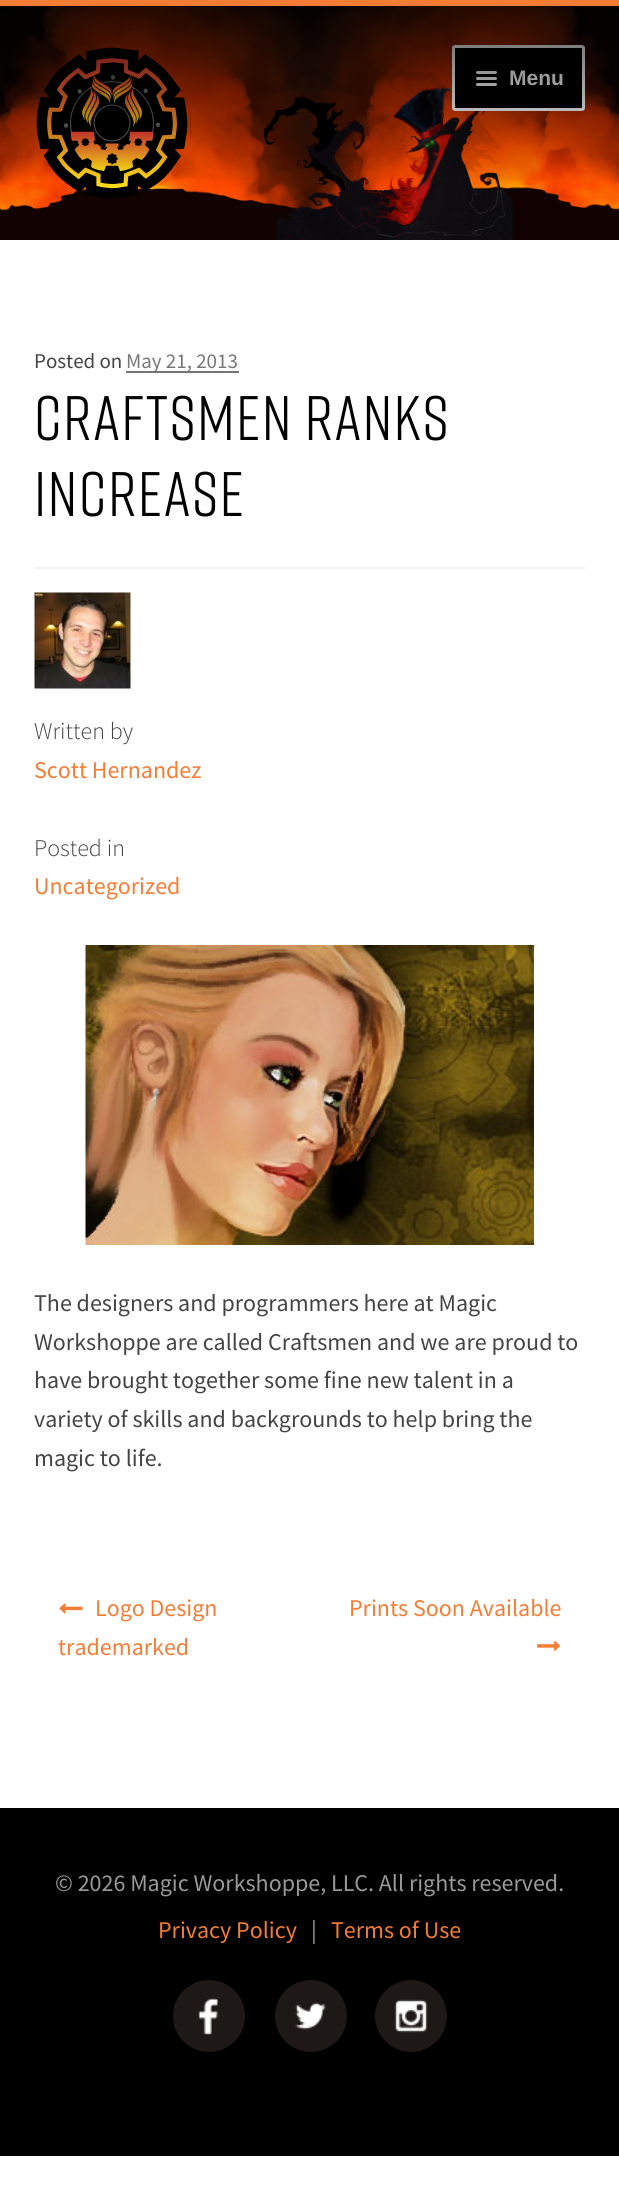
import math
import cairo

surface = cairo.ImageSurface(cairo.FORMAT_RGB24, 619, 2212)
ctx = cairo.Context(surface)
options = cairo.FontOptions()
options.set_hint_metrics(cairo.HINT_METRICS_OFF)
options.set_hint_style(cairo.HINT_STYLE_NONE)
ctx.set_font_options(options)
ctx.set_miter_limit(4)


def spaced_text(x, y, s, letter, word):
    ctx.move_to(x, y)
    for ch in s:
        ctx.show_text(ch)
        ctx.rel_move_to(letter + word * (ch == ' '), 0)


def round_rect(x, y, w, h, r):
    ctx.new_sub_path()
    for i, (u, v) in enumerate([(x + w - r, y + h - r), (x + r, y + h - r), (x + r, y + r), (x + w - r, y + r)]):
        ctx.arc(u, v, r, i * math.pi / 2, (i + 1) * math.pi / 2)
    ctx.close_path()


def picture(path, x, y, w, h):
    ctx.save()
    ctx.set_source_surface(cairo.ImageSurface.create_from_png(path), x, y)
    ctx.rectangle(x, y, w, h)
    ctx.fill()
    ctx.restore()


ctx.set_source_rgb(1, 1, 1)
ctx.paint()
picture("img1.png", 0, 6, 619, 234)
ctx.set_source_rgb(0.957, 0.49, 0.212)
ctx.rectangle(0, 0, 619, 6)
ctx.fill()
picture("img2.png", 36, 47, 152, 152)
picture("img3.png", 190, 112, 1, 31)
ctx.set_source_rgb(0, 0, 0)
round_rect(453.5, 46.5, 130, 63, 1.5)
ctx.fill_preserve()
ctx.set_source_rgb(1, 1, 1)
ctx.set_line_width(3)
ctx.stroke()
round_rect(476, 71, 21, 3, 1.5)
ctx.fill()
round_rect(476, 77, 21, 3, 1.5)
ctx.fill()
ctx.select_font_face("Liberation Sans", cairo.FONT_SLANT_NORMAL, cairo.FONT_WEIGHT_BOLD)
ctx.set_font_size(21)
ctx.move_to(509, 85)
ctx.show_text("Menu")
round_rect(476, 83, 21, 3, 1.5)
ctx.fill()
gradient = cairo.LinearGradient(310, 6, 310, 186)
gradient.add_color_stop_rgba(0, 0, 0, 0, 0.65)
gradient.add_color_stop_rgba(1, 0, 0, 0, 0)
ctx.set_source(gradient)
ctx.rectangle(0, 6, 619, 174)
ctx.fill()
ctx.set_source_rgb(0.949, 0.949, 0.949)
ctx.rectangle(35, 567, 550, 2)
ctx.fill()
ctx.select_font_face("Source Sans Pro")
ctx.set_source_rgb(0.267, 0.267, 0.267)
ctx.move_to(34, 368)
ctx.show_text("Posted on")
ctx.set_source_rgb(0.463, 0.463, 0.463)
ctx.rectangle(126, 371, 113, 2)
ctx.fill()
ctx.move_to(126, 368)
ctx.show_text("May 21, 2013")
ctx.select_font_face("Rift")
ctx.set_font_size(62.75)
ctx.set_source_rgb(0, 0, 0)
spaced_text(34, 440, "Craftsmen Ranks", 1.6, 0)
spaced_text(34, 516, "Increase", 1.6, 0)
picture("img4.png", 34, 592, 97, 97)
ctx.select_font_face("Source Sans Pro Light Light")
ctx.set_font_size(24)
ctx.set_source_rgb(0.267, 0.267, 0.267)
ctx.move_to(34, 739)
ctx.show_text("Written by")
ctx.select_font_face("Source Sans Pro")
ctx.set_source_rgb(0.957, 0.49, 0.212)
ctx.move_to(34, 778)
ctx.show_text("Scott Hernandez")
ctx.select_font_face("Source Sans Pro Light Light")
ctx.set_source_rgb(0.267, 0.267, 0.267)
ctx.move_to(34, 856)
ctx.show_text("Posted in")
ctx.select_font_face("Source Sans Pro")
ctx.set_source_rgb(0.957, 0.49, 0.212)
ctx.move_to(34, 894)
ctx.show_text("Uncategorized")
picture("img5.png", 85, 945, 449, 300)
ctx.set_source_rgb(0.267, 0.267, 0.267)
ctx.move_to(34, 1311)
ctx.show_text("The designers and programmers here at Magic")
ctx.move_to(34, 1350)
ctx.show_text("Workshoppe are called Craftsmen and we are proud to")
ctx.move_to(34, 1388)
ctx.show_text("have brought together some fine new talent in a")
ctx.move_to(34, 1427)
ctx.show_text("variety of skills and backgrounds to help bring the")
ctx.move_to(34, 1466)
ctx.show_text("magic to life.")
picture("img6.png", 59, 1603, 24, 11)
ctx.set_source_rgb(0.957, 0.49, 0.212)
ctx.move_to(95, 1616)
ctx.show_text("Logo Design")
ctx.move_to(58, 1655)
ctx.show_text("trademarked")
ctx.move_to(349, 1616)
ctx.show_text("Prints Soon Available")
picture("img7.png", 537, 1640, 24, 11)
ctx.set_source_rgb(0, 0, 0)
ctx.rectangle(0, 1808, 619, 348)
ctx.fill()
ctx.set_source_rgb(0.6, 0.6, 0.6)
ctx.move_to(55, 1891)
ctx.show_text("© 2026 Magic Workshoppe, LLC. All rights reserved.")
ctx.set_source_rgb(0.957, 0.49, 0.212)
ctx.move_to(158, 1938)
ctx.show_text("Privacy Policy")
ctx.set_source_rgb(0.6, 0.6, 0.6)
ctx.move_to(311, 1938)
ctx.show_text("|")
ctx.set_source_rgb(0.957, 0.49, 0.212)
ctx.move_to(331, 1938)
ctx.show_text("Terms of Use")
ctx.set_source_rgb(0.118, 0.094, 0.09)
ctx.new_path()
ctx.arc(209, 2016, 36, 0, 2 * math.pi)
ctx.fill()
picture("img8.png", 198, 1998, 20, 37)
ctx.arc(311, 2016, 36, 0, 2 * math.pi)
ctx.fill()
picture("img9.png", 295, 2002, 31, 28)
ctx.arc(411, 2016, 36, 0, 2 * math.pi)
ctx.fill()
picture("img10.png", 394, 1999, 34, 34)
surface.write_to_png("page.png")
